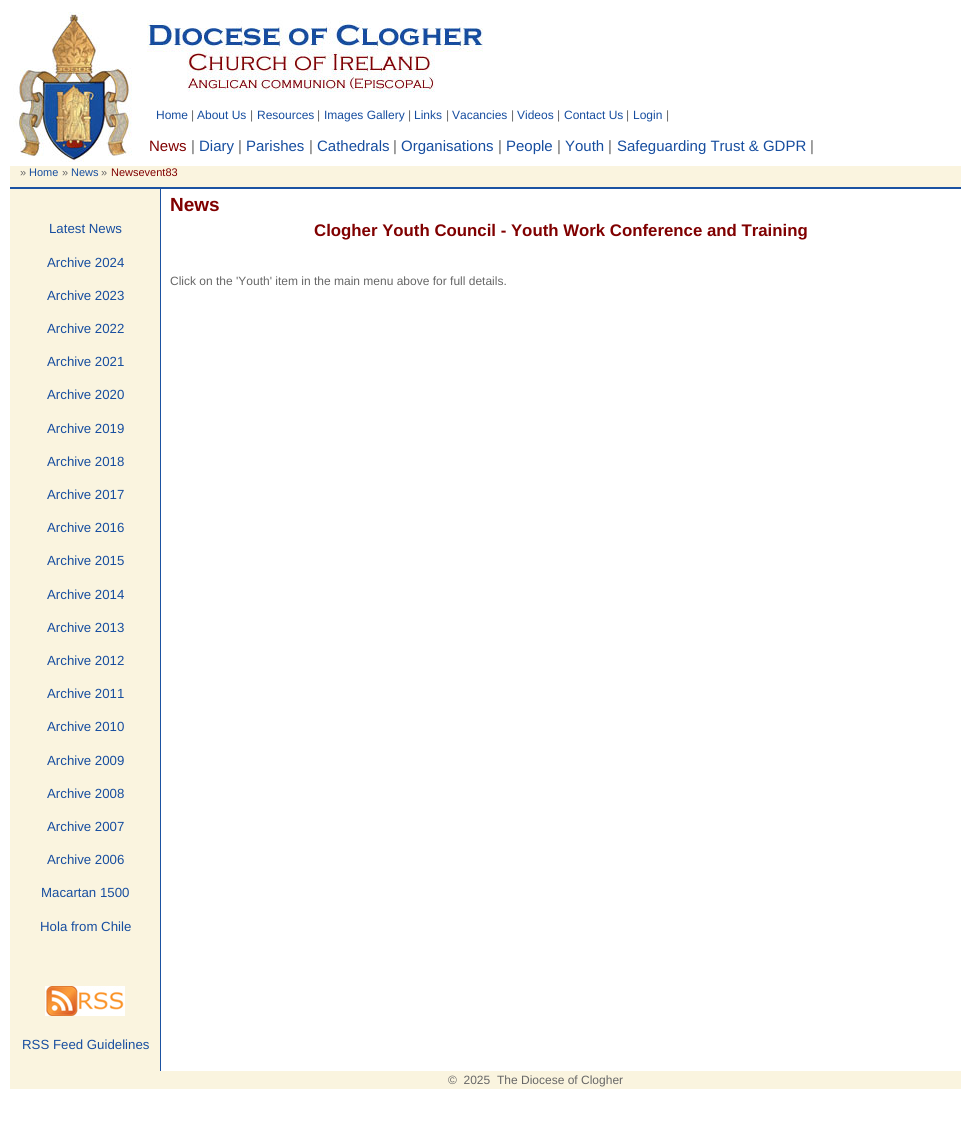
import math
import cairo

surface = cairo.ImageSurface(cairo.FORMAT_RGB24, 971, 1123)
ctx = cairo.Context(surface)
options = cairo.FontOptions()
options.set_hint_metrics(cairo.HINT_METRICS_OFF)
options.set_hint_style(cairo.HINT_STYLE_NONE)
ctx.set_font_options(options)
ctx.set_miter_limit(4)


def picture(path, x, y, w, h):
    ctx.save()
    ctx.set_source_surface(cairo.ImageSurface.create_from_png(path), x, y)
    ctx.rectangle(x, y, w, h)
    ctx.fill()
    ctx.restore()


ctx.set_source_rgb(1, 1, 1)
ctx.paint()
picture("img1.png", 13, 12, 119, 150)
picture("img2.png", 147, 20, 336, 72)
ctx.select_font_face("Liberation Sans")
ctx.set_font_size(12)
ctx.set_source_rgb(0.086, 0.302, 0.624)
ctx.move_to(156, 119)
ctx.show_text("Home")
ctx.set_source_rgb(0.4, 0.4, 0.4)
ctx.move_to(191, 119)
ctx.show_text("|")
ctx.set_source_rgb(0.086, 0.302, 0.624)
ctx.move_to(197, 119)
ctx.show_text("About Us")
ctx.set_source_rgb(0.4, 0.4, 0.4)
ctx.move_to(250, 119)
ctx.show_text("|")
ctx.set_source_rgb(0.086, 0.302, 0.624)
ctx.move_to(257, 119)
ctx.show_text("Resources")
ctx.set_source_rgb(0.4, 0.4, 0.4)
ctx.move_to(317, 119)
ctx.show_text("|")
ctx.set_source_rgb(0.086, 0.302, 0.624)
ctx.move_to(324, 119)
ctx.show_text("Images Gallery")
ctx.set_source_rgb(0.4, 0.4, 0.4)
ctx.move_to(408, 119)
ctx.show_text("|")
ctx.set_source_rgb(0.086, 0.302, 0.624)
ctx.move_to(414, 119)
ctx.show_text("Links")
ctx.set_source_rgb(0.4, 0.4, 0.4)
ctx.move_to(446, 119)
ctx.show_text("|")
ctx.set_source_rgb(0.086, 0.302, 0.624)
ctx.move_to(452, 119)
ctx.show_text("Vacancies")
ctx.set_source_rgb(0.4, 0.4, 0.4)
ctx.move_to(511, 119)
ctx.show_text("|")
ctx.set_source_rgb(0.086, 0.302, 0.624)
ctx.move_to(517, 119)
ctx.show_text("Videos")
ctx.set_source_rgb(0.4, 0.4, 0.4)
ctx.move_to(557, 119)
ctx.show_text("|")
ctx.set_source_rgb(0.086, 0.302, 0.624)
ctx.move_to(564, 119)
ctx.show_text("Contact Us")
ctx.set_source_rgb(0.4, 0.4, 0.4)
ctx.move_to(626, 119)
ctx.show_text("|")
ctx.set_source_rgb(0.086, 0.302, 0.624)
ctx.move_to(633, 119)
ctx.show_text("Login")
ctx.set_source_rgb(0.4, 0.4, 0.4)
ctx.move_to(666, 119)
ctx.show_text("|")
ctx.set_font_size(15)
ctx.set_source_rgb(0.502, 0, 0)
ctx.move_to(149, 151)
ctx.show_text("News")
ctx.set_source_rgb(0.4, 0.4, 0.4)
ctx.move_to(191, 151)
ctx.show_text("|")
ctx.set_source_rgb(0.086, 0.302, 0.624)
ctx.move_to(199, 151)
ctx.show_text("Diary")
ctx.set_source_rgb(0.4, 0.4, 0.4)
ctx.move_to(238, 151)
ctx.show_text("|")
ctx.set_source_rgb(0.086, 0.302, 0.624)
ctx.move_to(246, 151)
ctx.show_text("Parishes")
ctx.set_source_rgb(0.4, 0.4, 0.4)
ctx.move_to(309, 151)
ctx.show_text("|")
ctx.set_source_rgb(0.086, 0.302, 0.624)
ctx.move_to(317, 151)
ctx.show_text("Cathedrals")
ctx.set_source_rgb(0.4, 0.4, 0.4)
ctx.move_to(393, 151)
ctx.show_text("|")
ctx.set_source_rgb(0.086, 0.302, 0.624)
ctx.move_to(401, 151)
ctx.show_text("Organisations")
ctx.set_source_rgb(0.4, 0.4, 0.4)
ctx.move_to(498, 151)
ctx.show_text("|")
ctx.set_source_rgb(0.086, 0.302, 0.624)
ctx.move_to(506, 151)
ctx.show_text("People")
ctx.set_source_rgb(0.4, 0.4, 0.4)
ctx.move_to(557, 151)
ctx.show_text("|")
ctx.set_source_rgb(0.086, 0.302, 0.624)
ctx.move_to(565, 151)
ctx.show_text("Youth")
ctx.set_source_rgb(0.4, 0.4, 0.4)
ctx.move_to(608, 151)
ctx.show_text("|")
ctx.set_source_rgb(0.086, 0.302, 0.624)
ctx.move_to(617, 151)
ctx.show_text("Safeguarding Trust & GDPR")
ctx.set_source_rgb(0.4, 0.4, 0.4)
ctx.move_to(810, 151)
ctx.show_text("|")
ctx.set_source_rgb(0.98, 0.957, 0.875)
ctx.rectangle(10, 166, 951, 21)
ctx.fill()
ctx.set_source_rgb(0.106, 0.322, 0.635)
ctx.rectangle(10, 187, 951, 2)
ctx.fill()
ctx.set_font_size(11)
ctx.set_source_rgb(0.4, 0.4, 0.4)
ctx.move_to(20, 176)
ctx.show_text("»")
ctx.set_source_rgb(0.086, 0.302, 0.624)
ctx.move_to(29, 176)
ctx.show_text("Home")
ctx.set_source_rgb(0.4, 0.4, 0.4)
ctx.move_to(62, 176)
ctx.show_text("»")
ctx.set_source_rgb(0.086, 0.302, 0.624)
ctx.move_to(71, 176)
ctx.show_text("News")
ctx.set_source_rgb(0.4, 0.4, 0.4)
ctx.move_to(101, 176)
ctx.show_text("»")
ctx.set_source_rgb(0.502, 0, 0)
ctx.move_to(111, 176)
ctx.show_text("Newsevent83")
ctx.set_source_rgb(0.98, 0.957, 0.875)
ctx.rectangle(10, 189, 150, 882)
ctx.fill()
ctx.set_source_rgb(0.106, 0.322, 0.635)
ctx.rectangle(160, 189, 1, 882)
ctx.fill()
ctx.set_font_size(13.25)
ctx.set_source_rgb(0.086, 0.302, 0.624)
ctx.move_to(49, 233)
ctx.show_text("Latest News")
ctx.move_to(47, 267)
ctx.show_text("Archive 2024")
ctx.move_to(47, 300)
ctx.show_text("Archive 2023")
ctx.move_to(47, 333)
ctx.show_text("Archive 2022")
ctx.move_to(47, 366)
ctx.show_text("Archive 2021")
ctx.move_to(47, 399)
ctx.show_text("Archive 2020")
ctx.move_to(47, 433)
ctx.show_text("Archive 2019")
ctx.move_to(47, 466)
ctx.show_text("Archive 2018")
ctx.move_to(47, 499)
ctx.show_text("Archive 2017")
ctx.move_to(47, 532)
ctx.show_text("Archive 2016")
ctx.move_to(47, 565)
ctx.show_text("Archive 2015")
ctx.move_to(47, 599)
ctx.show_text("Archive 2014")
ctx.move_to(47, 632)
ctx.show_text("Archive 2013")
ctx.move_to(47, 665)
ctx.show_text("Archive 2012")
ctx.move_to(47, 698)
ctx.show_text("Archive 2011")
ctx.move_to(47, 731)
ctx.show_text("Archive 2010")
ctx.move_to(47, 765)
ctx.show_text("Archive 2009")
ctx.move_to(47, 798)
ctx.show_text("Archive 2008")
ctx.move_to(47, 831)
ctx.show_text("Archive 2007")
ctx.move_to(47, 864)
ctx.show_text("Archive 2006")
ctx.move_to(41, 897)
ctx.show_text("Macartan 1500")
ctx.move_to(40, 931)
ctx.show_text("Hola from Chile")
picture("img3.png", 45, 986, 80, 30)
ctx.move_to(22, 1049)
ctx.show_text("RSS Feed Guidelines")
ctx.select_font_face("Liberation Sans", cairo.FONT_SLANT_NORMAL, cairo.FONT_WEIGHT_BOLD)
ctx.set_font_size(19)
ctx.set_source_rgb(0.502, 0, 0)
ctx.move_to(170, 211)
ctx.show_text("News")
ctx.set_font_size(16.8)
ctx.move_to(314, 236)
ctx.show_text("Clogher Youth Council - Youth Work Conference and Training")
ctx.select_font_face("Liberation Sans")
ctx.set_font_size(12)
ctx.set_source_rgb(0.4, 0.4, 0.4)
ctx.move_to(170, 285)
ctx.show_text("Click on the 'Youth' item in the main menu above for full details.")
ctx.set_source_rgb(0.98, 0.957, 0.875)
ctx.rectangle(10, 1071, 951, 18)
ctx.fill()
ctx.set_source_rgb(0.4, 0.4, 0.4)
ctx.move_to(448, 1084)
ctx.show_text("©  2025")
ctx.move_to(497, 1084)
ctx.show_text("The Diocese of Clogher")
surface.write_to_png("page.png")
